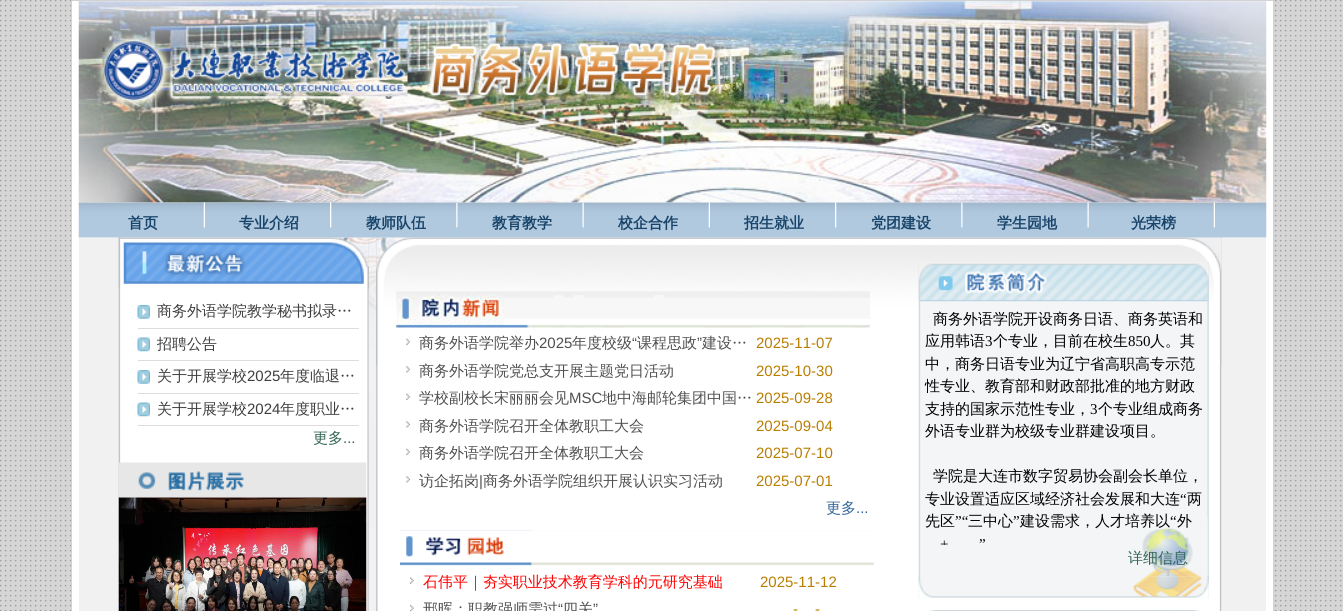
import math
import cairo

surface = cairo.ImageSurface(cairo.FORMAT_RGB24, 1343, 611)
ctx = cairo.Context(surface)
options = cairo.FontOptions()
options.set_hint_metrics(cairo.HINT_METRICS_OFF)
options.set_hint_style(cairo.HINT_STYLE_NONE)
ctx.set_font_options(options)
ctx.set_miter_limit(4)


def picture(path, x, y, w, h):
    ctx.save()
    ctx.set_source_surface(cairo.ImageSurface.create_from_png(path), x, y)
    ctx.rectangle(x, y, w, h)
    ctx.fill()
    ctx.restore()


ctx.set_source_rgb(1, 1, 1)
ctx.paint()
picture("img1.png", 0, 0, 1343, 611)
ctx.set_source_rgb(1, 1, 1)
ctx.rectangle(71.5, 0.5, 1202, 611)
ctx.fill_preserve()
ctx.set_source_rgb(0.824, 0.824, 0.824)
ctx.set_line_width(1)
ctx.stroke()
picture("img2.png", 78, 1, 1189, 202)
ctx.set_source_rgb(0.945, 0.945, 0.945)
ctx.rectangle(79, 238, 1187, 373)
ctx.fill()
picture("img13.png", 118, 237, 251, 374)
picture("img19.png", 368, 237, 9, 374)
picture("img14.png", 118, 237, 251, 52)
picture("img20.png", 376, 237, 846, 374)
picture("img21.png", 376, 237, 846, 129)
picture("img3.png", 78, 202, 1189, 36)
picture("img4.png", 203, 202, 2, 36)
ctx.select_font_face("WenQuanYi Zen Hei", cairo.FONT_SLANT_NORMAL, cairo.FONT_WEIGHT_BOLD)
ctx.set_font_size(15)
ctx.set_source_rgb(0.098, 0.267, 0.416)
ctx.move_to(128, 228)
ctx.show_text("首页")
picture("img5.png", 330, 202, 2, 36)
ctx.move_to(239, 228)
ctx.show_text("专业介绍")
picture("img6.png", 456, 202, 2, 36)
ctx.move_to(366, 228)
ctx.show_text("教师队伍")
picture("img7.png", 582, 202, 2, 36)
ctx.move_to(492, 228)
ctx.show_text("教育教学")
picture("img8.png", 708, 202, 2, 36)
ctx.move_to(618, 228)
ctx.show_text("校企合作")
picture("img9.png", 835, 202, 2, 36)
ctx.move_to(744, 228)
ctx.show_text("招生就业")
picture("img10.png", 961, 202, 2, 36)
ctx.move_to(871, 228)
ctx.show_text("党团建设")
picture("img11.png", 1087, 202, 2, 36)
ctx.move_to(997, 228)
ctx.show_text("学生园地")
picture("img12.png", 1213, 202, 2, 36)
ctx.move_to(1131, 228)
ctx.show_text("光荣榜")
picture("img15.png", 137, 305, 13, 14)
ctx.set_source_rgb(0.867, 0.867, 0.867)
ctx.rectangle(138, 328, 221, 1)
ctx.fill()
ctx.select_font_face("WenQuanYi Zen Hei Medium")
ctx.set_source_rgb(0.243, 0.243, 0.243)
ctx.move_to(157, 316)
ctx.show_text("商务外语学院教学秘书拟录…")
picture("img16.png", 137, 337, 13, 15)
ctx.set_source_rgb(0.867, 0.867, 0.867)
ctx.rectangle(138, 360, 221, 1)
ctx.fill()
ctx.set_source_rgb(0.243, 0.243, 0.243)
ctx.move_to(157, 349)
ctx.show_text("招聘公告")
picture("img15.png", 137, 370, 13, 14)
ctx.set_source_rgb(0.867, 0.867, 0.867)
ctx.rectangle(138, 393, 221, 1)
ctx.fill()
ctx.set_source_rgb(0.243, 0.243, 0.243)
ctx.move_to(157, 381)
ctx.show_text("关于开展学校")
ctx.select_font_face("Liberation Sans")
ctx.move_to(247, 381)
ctx.show_text("2025")
ctx.select_font_face("WenQuanYi Zen Hei Medium")
ctx.move_to(280, 381)
ctx.show_text("年度临退…")
picture("img16.png", 137, 402, 13, 15)
ctx.set_source_rgb(0.867, 0.867, 0.867)
ctx.rectangle(138, 425, 221, 1)
ctx.fill()
ctx.set_source_rgb(0.243, 0.243, 0.243)
ctx.move_to(157, 414)
ctx.show_text("关于开展学校")
ctx.select_font_face("Liberation Sans")
ctx.move_to(247, 414)
ctx.show_text("2024")
ctx.select_font_face("WenQuanYi Zen Hei Medium")
ctx.move_to(280, 414)
ctx.show_text("年度职业…")
ctx.set_source_rgb(0.2, 0.4, 0.333)
ctx.move_to(313, 443)
ctx.show_text("更多")
ctx.select_font_face("Liberation Sans")
ctx.move_to(343, 443)
ctx.show_text("...")
picture("img17.png", 119, 462, 248, 36)
picture("img18.png", 118, 497, 249, 114)
picture("img22.png", 396, 291, 474, 37)
picture("img23.png", 406, 338, 4, 7)
ctx.select_font_face("WenQuanYi Zen Hei Medium")
ctx.set_source_rgb(0.31, 0.31, 0.31)
ctx.move_to(419, 348)
ctx.show_text("商务外语学院举办")
ctx.select_font_face("Liberation Sans")
ctx.move_to(539, 348)
ctx.show_text("2025")
ctx.select_font_face("WenQuanYi Zen Hei Medium")
ctx.move_to(572, 348)
ctx.show_text("年度校级")
ctx.select_font_face("Liberation Sans")
ctx.move_to(632, 348)
ctx.show_text("“")
ctx.select_font_face("WenQuanYi Zen Hei Medium")
ctx.move_to(637, 348)
ctx.show_text("课程思政")
ctx.select_font_face("Liberation Sans")
ctx.move_to(697, 348)
ctx.show_text("”")
ctx.select_font_face("WenQuanYi Zen Hei Medium")
ctx.move_to(702, 348)
ctx.show_text("建设…")
ctx.select_font_face("Liberation Sans")
ctx.set_source_rgb(0.722, 0.494, 0)
ctx.move_to(756, 348)
ctx.show_text("2025-11-07")
picture("img24.png", 406, 366, 4, 7)
ctx.select_font_face("WenQuanYi Zen Hei Medium")
ctx.set_source_rgb(0.31, 0.31, 0.31)
ctx.move_to(419, 376)
ctx.show_text("商务外语学院党总支开展主题党日活动")
ctx.select_font_face("Liberation Sans")
ctx.set_source_rgb(0.722, 0.494, 0)
ctx.move_to(756, 376)
ctx.show_text("2025-10-30")
picture("img23.png", 406, 393, 4, 7)
ctx.select_font_face("WenQuanYi Zen Hei Medium")
ctx.set_source_rgb(0.31, 0.31, 0.31)
ctx.move_to(419, 403)
ctx.show_text("学校副校长宋丽丽会见")
ctx.select_font_face("Liberation Sans")
ctx.move_to(569, 403)
ctx.show_text("MSC")
ctx.select_font_face("WenQuanYi Zen Hei Medium")
ctx.move_to(602, 403)
ctx.show_text("地中海邮轮集团中国…")
ctx.select_font_face("Liberation Sans")
ctx.set_source_rgb(0.722, 0.494, 0)
ctx.move_to(756, 403)
ctx.show_text("2025-09-28")
picture("img24.png", 406, 421, 4, 7)
ctx.select_font_face("WenQuanYi Zen Hei Medium")
ctx.set_source_rgb(0.31, 0.31, 0.31)
ctx.move_to(419, 431)
ctx.show_text("商务外语学院召开全体教职工大会")
ctx.select_font_face("Liberation Sans")
ctx.set_source_rgb(0.722, 0.494, 0)
ctx.move_to(756, 431)
ctx.show_text("2025-09-04")
picture("img23.png", 406, 448, 4, 7)
ctx.select_font_face("WenQuanYi Zen Hei Medium")
ctx.set_source_rgb(0.31, 0.31, 0.31)
ctx.move_to(419, 458)
ctx.show_text("商务外语学院召开全体教职工大会")
ctx.select_font_face("Liberation Sans")
ctx.set_source_rgb(0.722, 0.494, 0)
ctx.move_to(756, 458)
ctx.show_text("2025-07-10")
picture("img24.png", 406, 476, 4, 7)
ctx.select_font_face("WenQuanYi Zen Hei Medium")
ctx.set_source_rgb(0.31, 0.31, 0.31)
ctx.move_to(419, 486)
ctx.show_text("访企拓岗")
ctx.select_font_face("Liberation Sans")
ctx.move_to(479, 486)
ctx.show_text("|")
ctx.select_font_face("WenQuanYi Zen Hei Medium")
ctx.move_to(483, 486)
ctx.show_text("商务外语学院组织开展认识实习活动")
ctx.select_font_face("Liberation Sans")
ctx.set_source_rgb(0.722, 0.494, 0)
ctx.move_to(756, 486)
ctx.show_text("2025-07-01")
ctx.select_font_face("WenQuanYi Zen Hei Medium")
ctx.set_source_rgb(0.2, 0.4, 0.6)
ctx.move_to(826, 513)
ctx.show_text("更多")
ctx.select_font_face("Liberation Sans")
ctx.move_to(856, 513)
ctx.show_text("...")
picture("img25.png", 400, 530, 474, 36)
picture("img26.png", 410, 577, 4, 7)
ctx.select_font_face("WenQuanYi Zen Hei Medium")
ctx.set_source_rgb(1, 0, 0)
ctx.move_to(423, 587)
ctx.show_text("石伟平｜夯实职业技术教育学科的元研究基础")
ctx.select_font_face("Liberation Sans")
ctx.set_source_rgb(0.722, 0.494, 0)
ctx.move_to(760, 587)
ctx.show_text("2025-11-12")
picture("img27.png", 410, 605, 4, 6)
ctx.select_font_face("WenQuanYi Zen Hei Medium")
ctx.set_source_rgb(0.31, 0.31, 0.31)
ctx.move_to(423, 614)
ctx.show_text("邢晖：职教强师需过")
ctx.select_font_face("Liberation Sans")
ctx.move_to(558, 614)
ctx.show_text("“")
ctx.select_font_face("WenQuanYi Zen Hei Medium")
ctx.move_to(563, 614)
ctx.show_text("四关")
ctx.select_font_face("Liberation Sans")
ctx.move_to(593, 614)
ctx.show_text("”")
ctx.set_source_rgb(0.722, 0.494, 0)
ctx.move_to(793, 614)
ctx.show_text("-")
ctx.move_to(815, 614)
ctx.show_text("-")
picture("img28.png", 918, 262, 291, 336)
picture("img29.png", 918, 262, 291, 40)
picture("img30.png", 1142, 517, 66, 60)
ctx.select_font_face("WenQuanYi Zen Hei Medium")
ctx.set_source_rgb(0, 0, 0)
ctx.move_to(933, 324)
ctx.show_text("商务外语学院开设商务日语、商务英语和")
ctx.move_to(925, 346)
ctx.show_text("应用韩语")
ctx.select_font_face("Liberation Serif")
ctx.move_to(985, 346)
ctx.show_text("3")
ctx.select_font_face("WenQuanYi Zen Hei Medium")
ctx.move_to(993, 346)
ctx.show_text("个专业，目前在校生")
ctx.select_font_face("Liberation Serif")
ctx.move_to(1128, 346)
ctx.show_text("850")
ctx.select_font_face("WenQuanYi Zen Hei Medium")
ctx.move_to(1150, 346)
ctx.show_text("人。其")
ctx.move_to(925, 369)
ctx.show_text("中，商务日语专业为辽宁省高职高专示范")
ctx.move_to(925, 391)
ctx.show_text("性专业、教育部和财政部批准的地方财政")
ctx.move_to(925, 414)
ctx.show_text("支持的国家示范性专业，")
ctx.select_font_face("Liberation Serif")
ctx.move_to(1090, 414)
ctx.show_text("3")
ctx.select_font_face("WenQuanYi Zen Hei Medium")
ctx.move_to(1098, 414)
ctx.show_text("个专业组成商务")
ctx.move_to(925, 436)
ctx.show_text("外语专业群为校级专业群建设项目。")
ctx.move_to(933, 481)
ctx.show_text("学院是大连市数字贸易协会副会长单位，")
ctx.move_to(925, 504)
ctx.show_text("专业设置适应区域经济社会发展和大连")
ctx.select_font_face("Liberation Serif")
ctx.move_to(1180, 504)
ctx.show_text("“")
ctx.select_font_face("WenQuanYi Zen Hei Medium")
ctx.move_to(1187, 504)
ctx.show_text("两")
ctx.move_to(925, 526)
ctx.show_text("先区")
ctx.select_font_face("Liberation Serif")
ctx.move_to(955, 526)
ctx.show_text("”“")
ctx.select_font_face("WenQuanYi Zen Hei Medium")
ctx.move_to(968, 526)
ctx.show_text("三中心")
ctx.select_font_face("Liberation Serif")
ctx.move_to(1013, 526)
ctx.show_text("”")
ctx.select_font_face("WenQuanYi Zen Hei Medium")
ctx.move_to(1020, 526)
ctx.show_text("建设需求，人才培养以")
ctx.select_font_face("Liberation Serif")
ctx.move_to(1170, 526)
ctx.show_text("“")
ctx.select_font_face("WenQuanYi Zen Hei Medium")
ctx.move_to(1177, 526)
ctx.show_text("外")
ctx.save()
ctx.rectangle(925, 308, 278, 237)
ctx.clip()
ctx.select_font_face("Liberation Serif")
ctx.move_to(940, 549)
ctx.show_text("+")
ctx.restore()
ctx.select_font_face("Liberation Serif")
ctx.move_to(979, 549)
ctx.show_text("”")
ctx.select_font_face("WenQuanYi Zen Hei Medium")
ctx.set_source_rgb(0.2, 0.4, 0.333)
ctx.move_to(1128, 563)
ctx.show_text("详细信息")
picture("img31.png", 918, 576, 291, 22)
picture("img32.png", 917, 610, 295, 1)
picture("img33.png", 917, 610, 294, 1)
surface.write_to_png("page.png")
